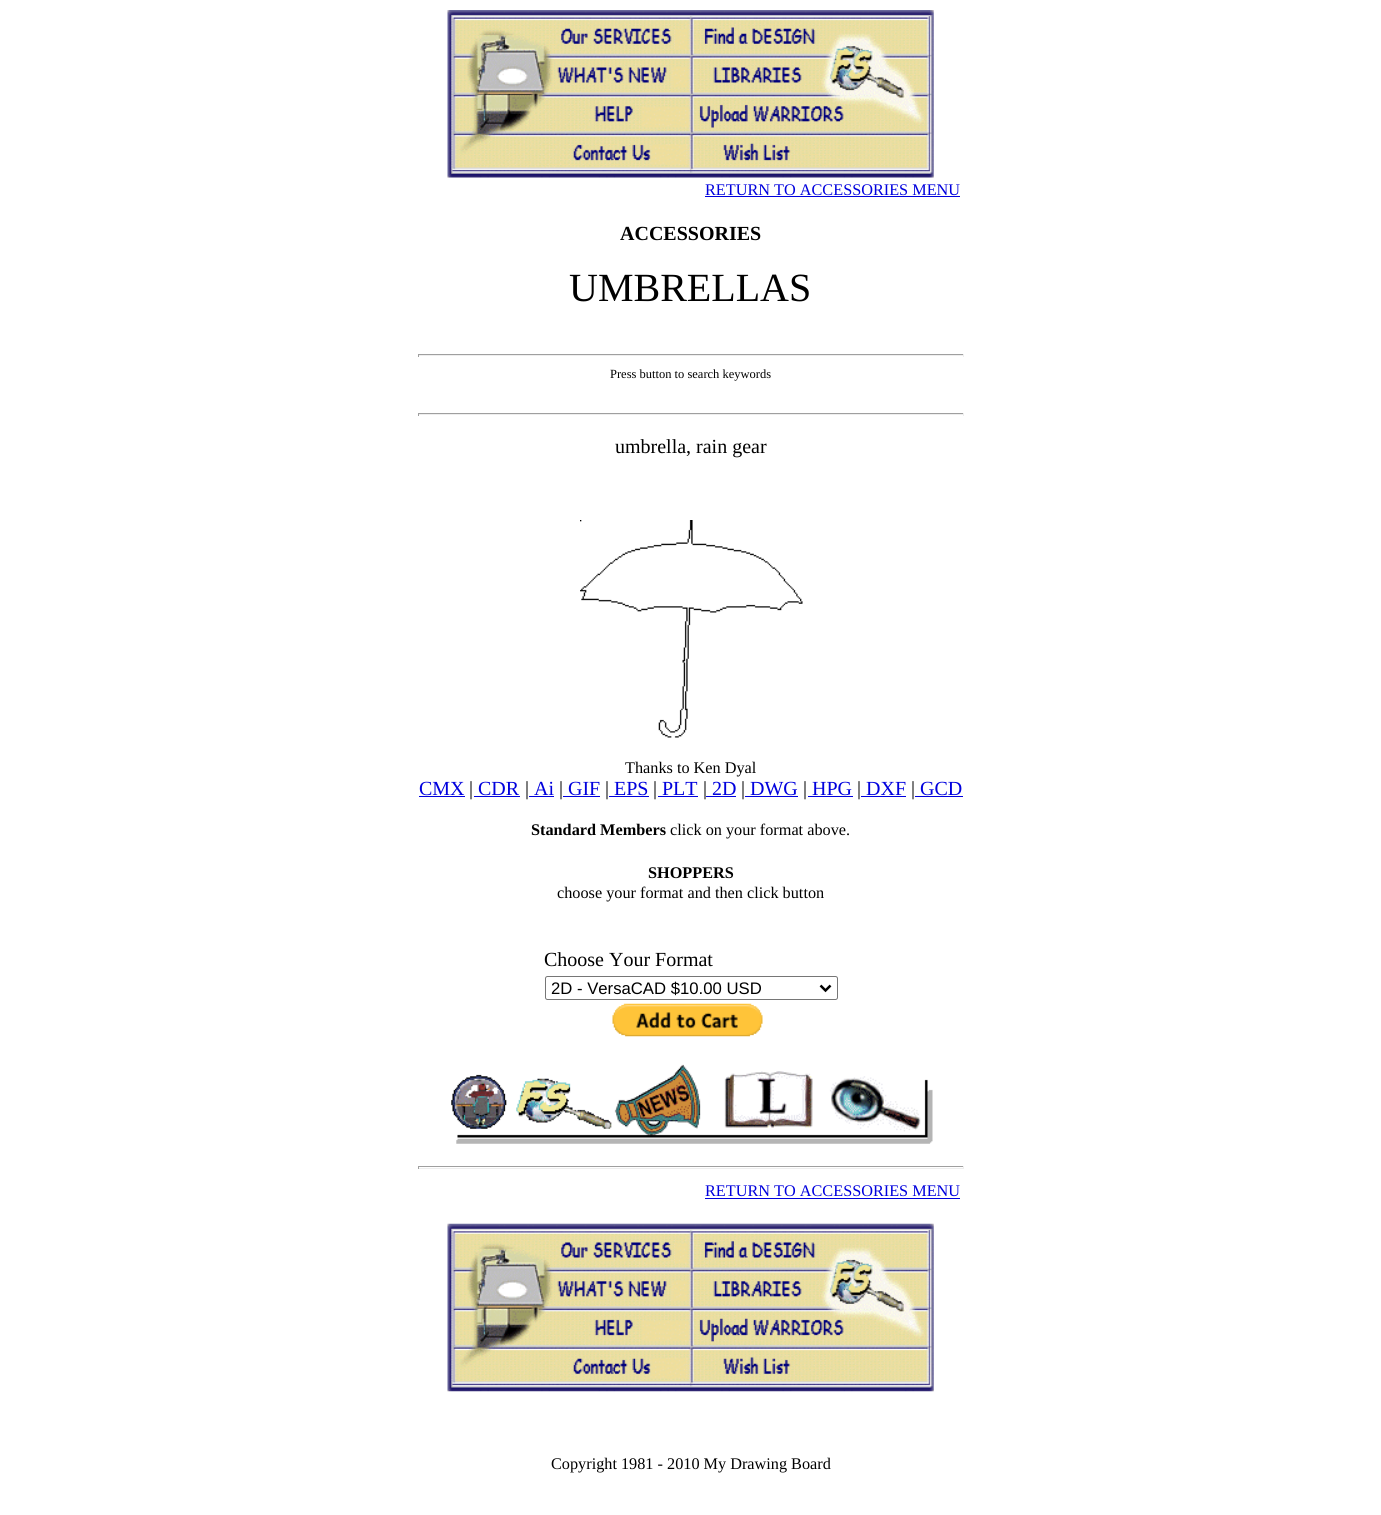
import math
import cairo

surface = cairo.ImageSurface(cairo.FORMAT_RGB24, 1381, 1515)
ctx = cairo.Context(surface)
options = cairo.FontOptions()
options.set_hint_metrics(cairo.HINT_METRICS_OFF)
options.set_hint_style(cairo.HINT_STYLE_NONE)
ctx.set_font_options(options)
ctx.set_miter_limit(4)


def round_rect(x, y, w, h, r):
    ctx.new_sub_path()
    for i, (u, v) in enumerate([(x + w - r, y + h - r), (x + r, y + h - r), (x + r, y + r), (x + w - r, y + r)]):
        ctx.arc(u, v, r, i * math.pi / 2, (i + 1) * math.pi / 2)
    ctx.close_path()


def picture(path, x, y, w, h):
    ctx.save()
    ctx.set_source_surface(cairo.ImageSurface.create_from_png(path), x, y)
    ctx.rectangle(x, y, w, h)
    ctx.fill()
    ctx.restore()


ctx.set_source_rgb(1, 1, 1)
ctx.paint()
picture("img1.png", 447, 10, 487, 168)
ctx.select_font_face("Liberation Serif")
ctx.set_font_size(16.25)
ctx.set_source_rgb(0, 0, 0.867)
ctx.move_to(705, 195)
ctx.show_text("RETURN TO ACCESSORIES MENU")
ctx.rectangle(705, 196, 255, 1)
ctx.fill()
ctx.select_font_face("Liberation Serif", cairo.FONT_SLANT_NORMAL, cairo.FONT_WEIGHT_BOLD)
ctx.set_font_size(20)
ctx.set_source_rgb(0, 0, 0)
ctx.move_to(620, 240)
ctx.show_text("ACCESSORIES")
ctx.select_font_face("Liberation Serif")
ctx.set_font_size(40)
ctx.move_to(569, 301)
ctx.show_text("UMBRELLAS")
ctx.set_source_rgb(0.624, 0.624, 0.624)
ctx.rectangle(418, 354, 546, 1)
ctx.fill()
ctx.set_source_rgb(0.933, 0.933, 0.933)
ctx.rectangle(963, 354, 1, 3)
ctx.fill()
ctx.rectangle(418, 355, 546, 1)
ctx.fill()
ctx.set_source_rgb(0.624, 0.624, 0.624)
ctx.rectangle(418, 354, 1, 3)
ctx.fill()
ctx.set_font_size(12.5)
ctx.set_source_rgb(0, 0, 0)
ctx.move_to(610, 378)
ctx.show_text("Press button to search keywords")
ctx.set_source_rgb(0.624, 0.624, 0.624)
ctx.rectangle(418, 413, 546, 1)
ctx.fill()
ctx.set_source_rgb(0.933, 0.933, 0.933)
ctx.rectangle(963, 413, 1, 3)
ctx.fill()
ctx.rectangle(418, 414, 546, 1)
ctx.fill()
ctx.set_source_rgb(0.624, 0.624, 0.624)
ctx.rectangle(418, 413, 1, 3)
ctx.fill()
ctx.set_font_size(20)
ctx.set_source_rgb(0, 0, 0)
ctx.move_to(615, 453)
ctx.show_text("umbrella, rain gear")
picture("img2.png", 580, 520, 223, 218)
ctx.set_font_size(16.25)
ctx.move_to(625, 773)
ctx.show_text("Thanks to Ken Dyal")
ctx.set_font_size(20)
ctx.set_source_rgb(0, 0, 0.867)
ctx.move_to(419, 795)
ctx.show_text("CMX")
ctx.rectangle(419, 796, 46, 1)
ctx.fill()
ctx.set_source_rgb(0, 0, 0)
ctx.move_to(469, 795)
ctx.show_text("|")
ctx.set_source_rgb(0, 0, 0.867)
ctx.move_to(478, 795)
ctx.show_text("CDR")
ctx.rectangle(474, 796, 46, 1)
ctx.fill()
ctx.set_source_rgb(0, 0, 0)
ctx.move_to(525, 795)
ctx.show_text("|")
ctx.set_source_rgb(0, 0, 0.867)
ctx.move_to(534, 795)
ctx.show_text("Ai")
ctx.rectangle(529, 796, 25, 1)
ctx.fill()
ctx.set_source_rgb(0, 0, 0)
ctx.move_to(559, 795)
ctx.show_text("|")
ctx.set_source_rgb(0, 0, 0.867)
ctx.move_to(568, 795)
ctx.show_text("GIF")
ctx.rectangle(563, 796, 37, 1)
ctx.fill()
ctx.set_source_rgb(0, 0, 0)
ctx.move_to(605, 795)
ctx.show_text("|")
ctx.set_source_rgb(0, 0, 0.867)
ctx.move_to(614, 795)
ctx.show_text("EPS")
ctx.rectangle(609, 796, 40, 1)
ctx.fill()
ctx.set_source_rgb(0, 0, 0)
ctx.move_to(653, 795)
ctx.show_text("|")
ctx.set_source_rgb(0, 0, 0.867)
ctx.move_to(662, 795)
ctx.show_text("PLT")
ctx.rectangle(658, 796, 40, 1)
ctx.fill()
ctx.set_source_rgb(0, 0, 0)
ctx.move_to(703, 795)
ctx.show_text("|")
ctx.set_source_rgb(0, 0, 0.867)
ctx.move_to(712, 795)
ctx.show_text("2D")
ctx.rectangle(706, 796, 30, 1)
ctx.fill()
ctx.set_source_rgb(0, 0, 0)
ctx.move_to(741, 795)
ctx.show_text("|")
ctx.set_source_rgb(0, 0, 0.867)
ctx.move_to(750, 795)
ctx.show_text("DWG")
ctx.rectangle(745, 796, 53, 1)
ctx.fill()
ctx.set_source_rgb(0, 0, 0)
ctx.move_to(803, 795)
ctx.show_text("|")
ctx.set_source_rgb(0, 0, 0.867)
ctx.move_to(812, 795)
ctx.show_text("HPG")
ctx.rectangle(808, 796, 45, 1)
ctx.fill()
ctx.set_source_rgb(0, 0, 0)
ctx.move_to(857, 795)
ctx.show_text("|")
ctx.set_source_rgb(0, 0, 0.867)
ctx.move_to(866, 795)
ctx.show_text("DXF")
ctx.rectangle(861, 796, 45, 1)
ctx.fill()
ctx.set_source_rgb(0, 0, 0)
ctx.move_to(911, 795)
ctx.show_text("|")
ctx.set_source_rgb(0, 0, 0.867)
ctx.move_to(920, 795)
ctx.show_text("GCD")
ctx.rectangle(915, 796, 48, 1)
ctx.fill()
ctx.select_font_face("Liberation Serif", cairo.FONT_SLANT_NORMAL, cairo.FONT_WEIGHT_BOLD)
ctx.set_font_size(16.25)
ctx.set_source_rgb(0, 0, 0)
ctx.move_to(531, 835)
ctx.show_text("Standard Members")
ctx.select_font_face("Liberation Serif")
ctx.move_to(670, 835)
ctx.show_text("click on your format above.")
ctx.select_font_face("Liberation Serif", cairo.FONT_SLANT_NORMAL, cairo.FONT_WEIGHT_BOLD)
ctx.move_to(648, 878)
ctx.show_text("SHOPPERS")
ctx.select_font_face("Liberation Serif")
ctx.move_to(557, 898)
ctx.show_text("choose your format and then click button")
ctx.set_font_size(20)
ctx.move_to(544, 966)
ctx.show_text("Choose Your Format")
round_rect(545.5, 976.5, 292, 23, 2)
ctx.set_source_rgb(0.463, 0.463, 0.463)
ctx.set_line_width(1)
ctx.stroke()
ctx.new_path()
ctx.move_to(820.5, 985.5)
ctx.line_to(825.5, 990.5)
ctx.line_to(830.5, 985.5)
ctx.set_source_rgb(0, 0, 0)
ctx.set_line_width(2.5)
ctx.stroke()
ctx.select_font_face("Liberation Sans")
ctx.set_font_size(16.7)
ctx.move_to(551, 994)
ctx.show_text("2D - VersaCAD $10.00 USD")
picture("img3.png", 612, 1003, 151, 34)
picture("img4.png", 451, 1064, 482, 80)
ctx.set_source_rgb(0.624, 0.624, 0.624)
ctx.rectangle(418, 1166, 546, 1)
ctx.fill()
ctx.set_source_rgb(0.933, 0.933, 0.933)
ctx.rectangle(963, 1166, 1, 3)
ctx.fill()
ctx.rectangle(418, 1168, 546, 1)
ctx.fill()
ctx.set_source_rgb(0.624, 0.624, 0.624)
ctx.rectangle(418, 1166, 1, 3)
ctx.fill()
ctx.select_font_face("Liberation Serif")
ctx.set_font_size(16.25)
ctx.set_source_rgb(0, 0, 0.867)
ctx.move_to(705, 1196)
ctx.show_text("RETURN TO ACCESSORIES MENU")
ctx.rectangle(705, 1198, 255, 1)
ctx.fill()
picture("img5.png", 447, 1223, 487, 169)
ctx.set_source_rgb(0, 0, 0)
ctx.move_to(551, 1469)
ctx.show_text("Copyright 1981 - 2010 My Drawing Board")
surface.write_to_png("page.png")
